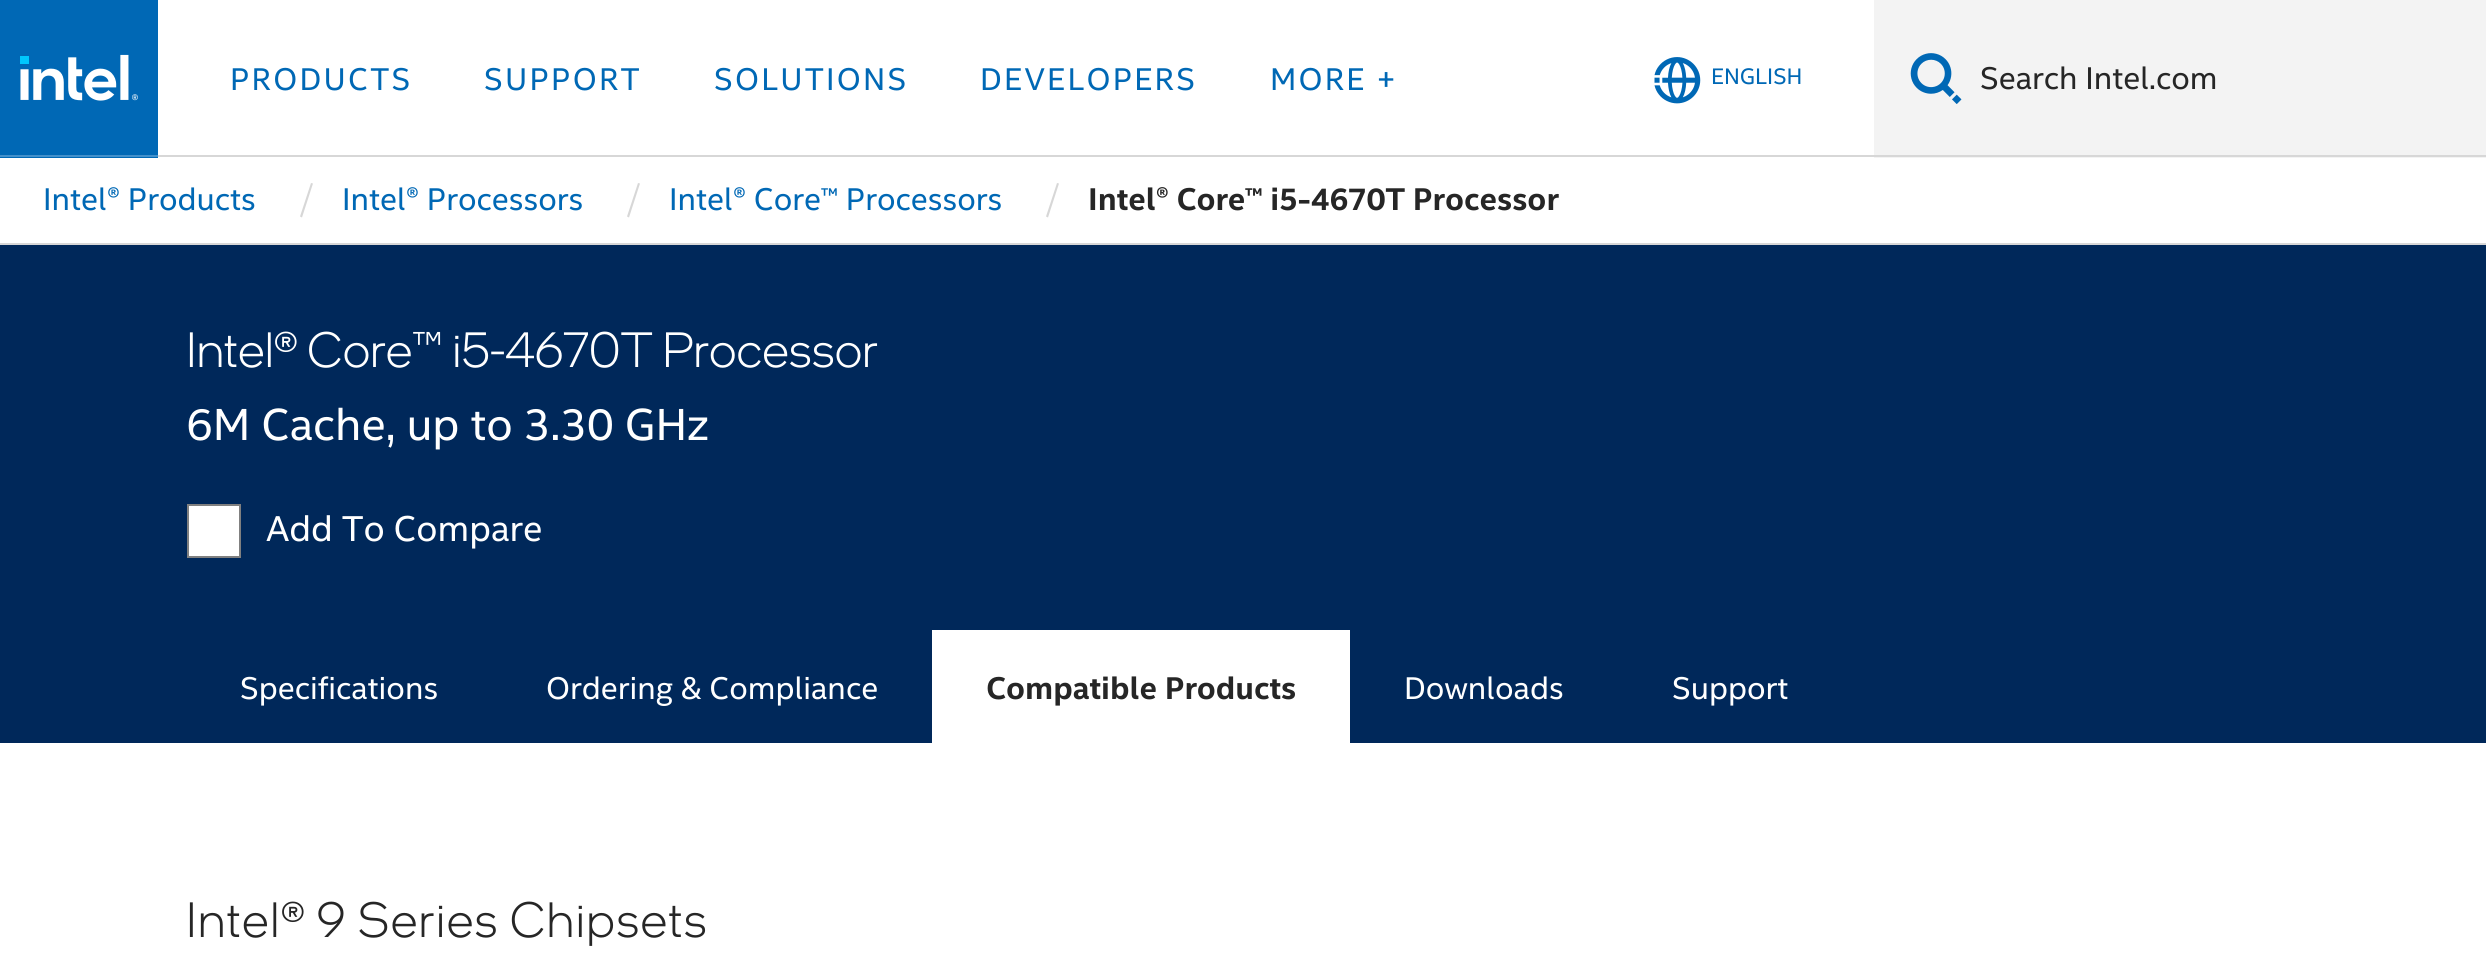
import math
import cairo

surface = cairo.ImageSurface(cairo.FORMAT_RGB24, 2486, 979)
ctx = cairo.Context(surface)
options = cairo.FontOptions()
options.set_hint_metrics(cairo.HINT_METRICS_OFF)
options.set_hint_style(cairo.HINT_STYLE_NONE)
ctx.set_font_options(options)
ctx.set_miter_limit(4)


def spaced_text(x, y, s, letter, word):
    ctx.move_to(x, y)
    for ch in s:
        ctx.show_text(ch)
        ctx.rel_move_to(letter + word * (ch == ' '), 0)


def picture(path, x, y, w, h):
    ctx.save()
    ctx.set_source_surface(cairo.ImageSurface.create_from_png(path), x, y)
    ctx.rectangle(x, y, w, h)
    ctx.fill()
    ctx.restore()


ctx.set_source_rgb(1, 1, 1)
ctx.paint()
ctx.set_source_rgb(0.843, 0.843, 0.843)
ctx.rectangle(158, 155, 1716, 2)
ctx.fill()
ctx.set_source_rgb(0, 0.408, 0.71)
ctx.rectangle(0, 0, 158, 158)
ctx.fill()
picture("img1.png", 20, 54, 118, 47)
ctx.set_source_rgb(0.259, 0.565, 0.796)
ctx.rectangle(0, 155, 158, 2)
ctx.fill()
ctx.select_font_face("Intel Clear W")
ctx.set_font_size(31.5)
ctx.set_source_rgb(0, 0.408, 0.71)
spaced_text(230, 90, "PRODUCTS", 2.25, 0)
spaced_text(484, 90, "SUPPORT", 2.25, 0)
spaced_text(714, 90, "SOLUTIONS", 2.25, 0)
spaced_text(980, 90, "DEVELOPERS", 2.25, 0)
spaced_text(1270, 90, "MORE +", 2.25, 0)
picture("img2.png", 1654, 57, 47, 47)
ctx.set_font_size(22.5)
ctx.move_to(1711, 84)
ctx.show_text("ENGLISH")
ctx.set_source_rgb(0.953, 0.953, 0.953)
ctx.rectangle(1874, 0, 612, 158)
ctx.fill()
ctx.set_source_rgb(0.843, 0.843, 0.843)
ctx.rectangle(1874, 155, 612, 2)
ctx.fill()
picture("img3.png", 1910, 53, 52, 51)
ctx.set_font_size(31.5)
ctx.set_source_rgb(0.149, 0.149, 0.149)
ctx.move_to(1980, 89)
ctx.show_text("Search Intel.com")
ctx.set_source_rgb(0.843, 0.843, 0.843)
ctx.rectangle(0, 243, 2486, 2)
ctx.fill()
ctx.set_source_rgb(0, 0.408, 0.71)
ctx.move_to(43, 210)
ctx.show_text("Intel® Products")
ctx.set_source_rgb(0.843, 0.843, 0.843)
ctx.new_path()
ctx.move_to(311, 183)
ctx.line_to(313, 183.5)
ctx.line_to(302, 217.5)
ctx.line_to(300, 216.5)
ctx.close_path()
ctx.fill()
ctx.set_source_rgb(0, 0.408, 0.71)
ctx.move_to(342, 210)
ctx.show_text("Intel® Processors")
ctx.set_source_rgb(0.843, 0.843, 0.843)
ctx.new_path()
ctx.move_to(638, 183)
ctx.line_to(640, 183.5)
ctx.line_to(629, 217.5)
ctx.line_to(627, 216.5)
ctx.close_path()
ctx.fill()
ctx.set_source_rgb(0, 0.408, 0.71)
ctx.move_to(669, 210)
ctx.show_text("Intel® Core™ Processors")
ctx.set_source_rgb(0.843, 0.843, 0.843)
ctx.new_path()
ctx.move_to(1057, 183)
ctx.line_to(1059, 183.5)
ctx.line_to(1048, 217.5)
ctx.line_to(1046, 216.5)
ctx.close_path()
ctx.fill()
ctx.select_font_face("Intel Clear W", cairo.FONT_SLANT_NORMAL, cairo.FONT_WEIGHT_BOLD)
ctx.set_source_rgb(0.149, 0.149, 0.149)
ctx.move_to(1088, 210)
ctx.show_text("Intel® Core™ i5-4670T Processor")
ctx.set_source_rgb(0, 0.157, 0.353)
ctx.rectangle(0, 245, 2486, 498)
ctx.fill()
ctx.select_font_face("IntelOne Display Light")
ctx.set_font_size(49.5)
ctx.set_source_rgb(1, 1, 1)
ctx.move_to(186, 367)
ctx.show_text("Intel® Core™ i5-4670T Processor")
ctx.select_font_face("Intel Clear W")
ctx.set_font_size(45)
ctx.move_to(186, 440)
ctx.show_text("6M Cache, up to 3.30 GHz")
ctx.rectangle(188, 505, 52, 52)
ctx.fill_preserve()
ctx.set_source_rgb(0.502, 0.502, 0.502)
ctx.stroke()
ctx.set_font_size(36)
ctx.set_source_rgb(1, 1, 1)
ctx.move_to(266, 541)
ctx.show_text("Add To Compare")
ctx.set_font_size(31.5)
ctx.move_to(240, 699)
ctx.show_text("Specifications")
ctx.move_to(546, 699)
ctx.show_text("Ordering & Compliance")
ctx.rectangle(932, 630, 418, 113)
ctx.fill()
ctx.select_font_face("Intel Clear W", cairo.FONT_SLANT_NORMAL, cairo.FONT_WEIGHT_BOLD)
ctx.set_source_rgb(0.149, 0.149, 0.149)
ctx.move_to(986, 699)
ctx.show_text("Compatible Products")
ctx.select_font_face("Intel Clear W")
ctx.set_source_rgb(1, 1, 1)
ctx.move_to(1404, 699)
ctx.show_text("Downloads")
ctx.move_to(1672, 699)
ctx.show_text("Support")
ctx.select_font_face("IntelOne Display Light")
ctx.set_font_size(49.5)
ctx.set_source_rgb(0.149, 0.149, 0.149)
spaced_text(186, 937, "Intel® 9 Series Chipsets", 1.4, 0)
surface.write_to_png("page.png")
